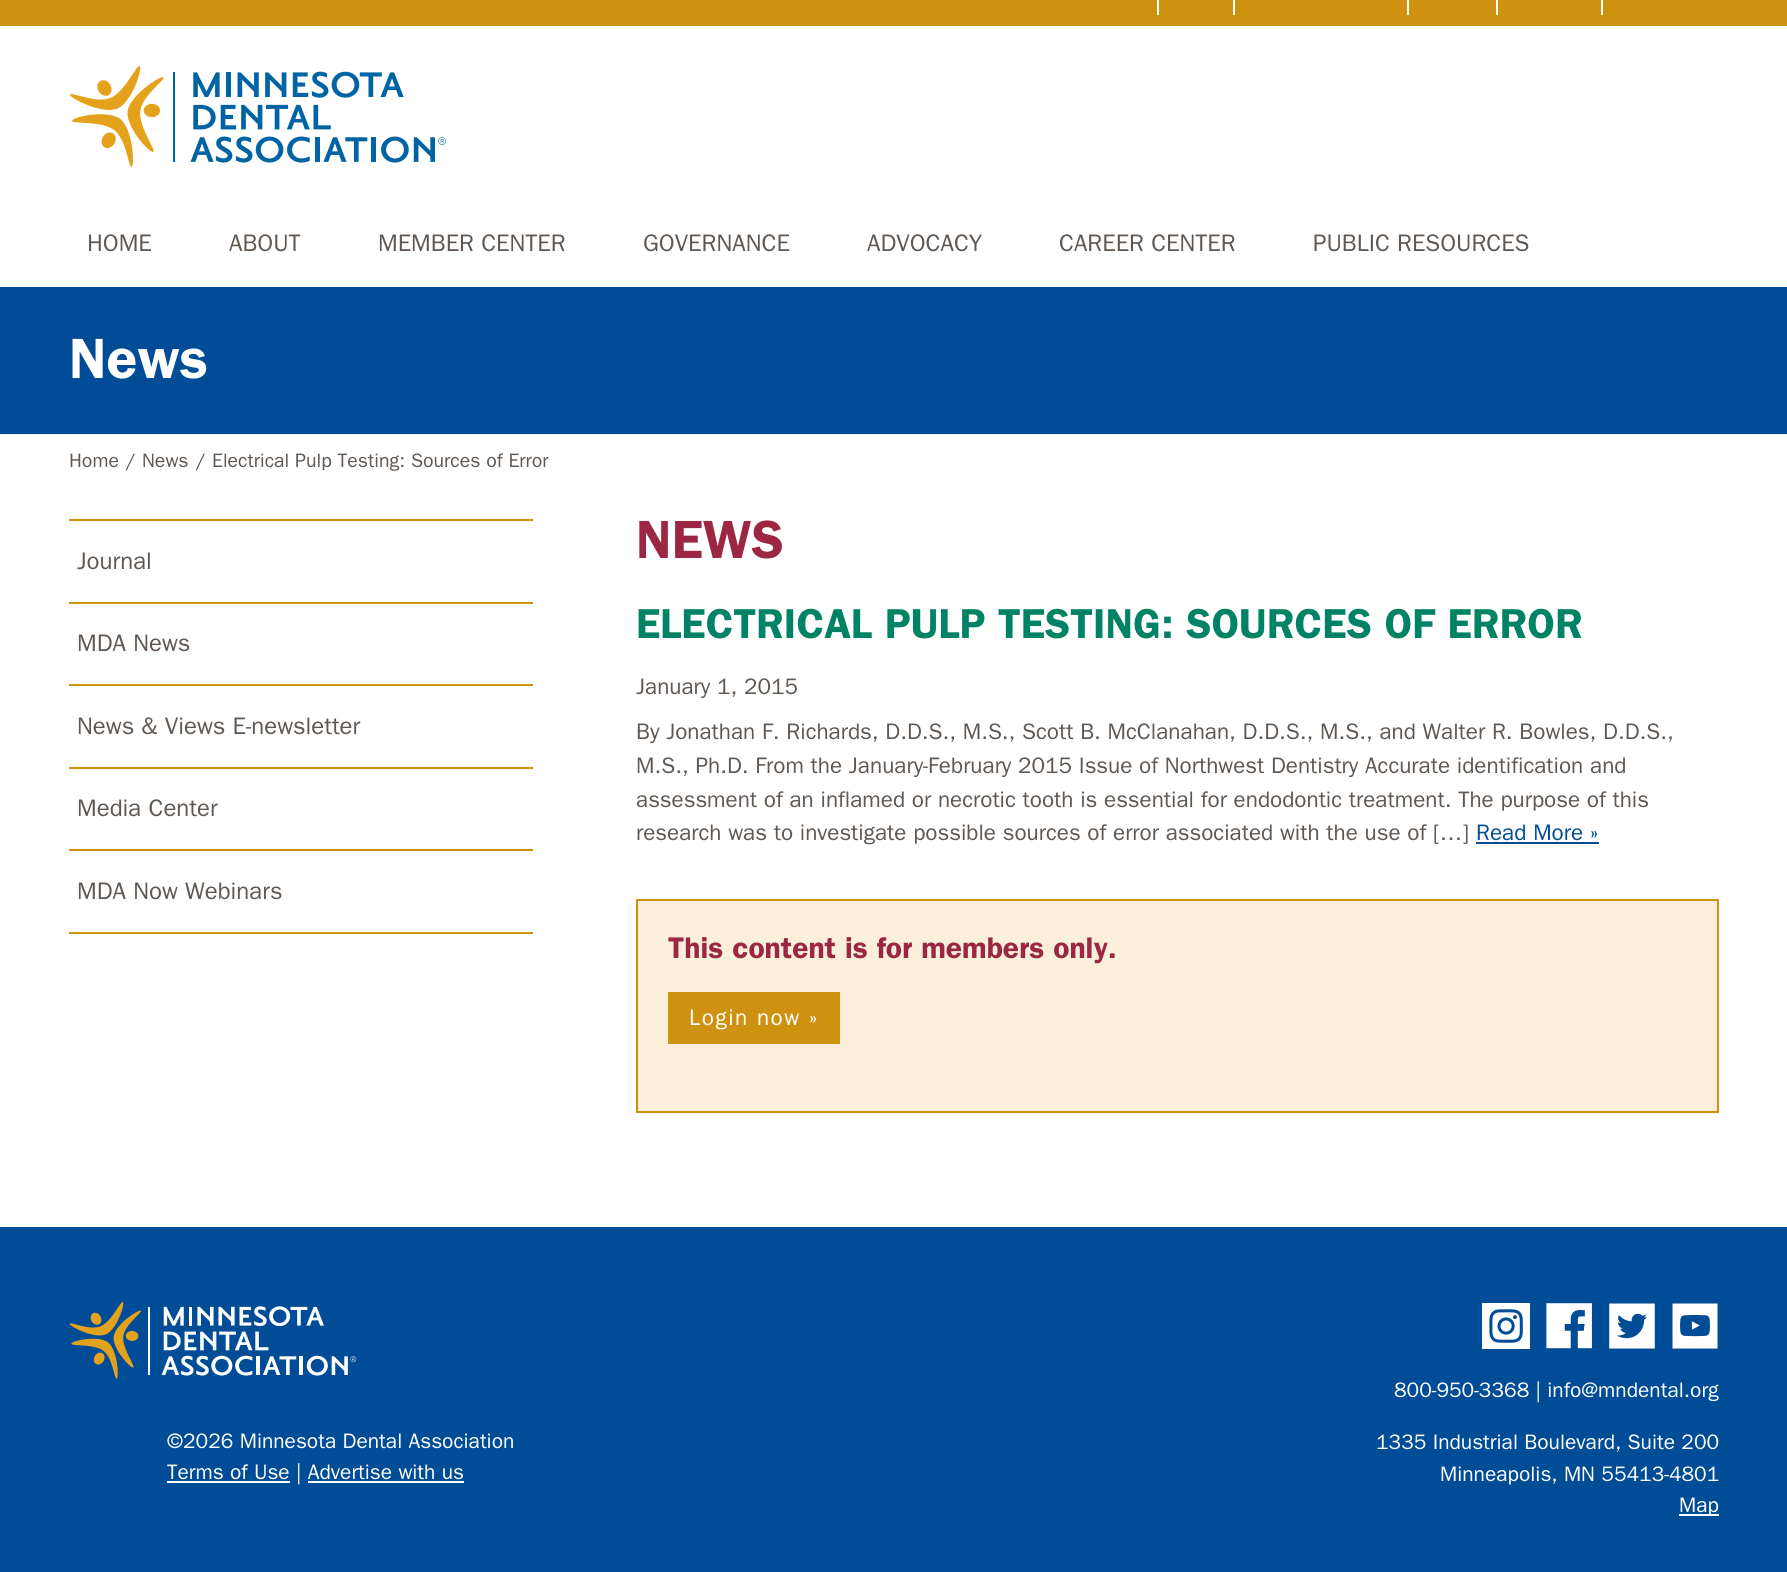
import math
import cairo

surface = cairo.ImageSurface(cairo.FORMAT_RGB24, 1787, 1572)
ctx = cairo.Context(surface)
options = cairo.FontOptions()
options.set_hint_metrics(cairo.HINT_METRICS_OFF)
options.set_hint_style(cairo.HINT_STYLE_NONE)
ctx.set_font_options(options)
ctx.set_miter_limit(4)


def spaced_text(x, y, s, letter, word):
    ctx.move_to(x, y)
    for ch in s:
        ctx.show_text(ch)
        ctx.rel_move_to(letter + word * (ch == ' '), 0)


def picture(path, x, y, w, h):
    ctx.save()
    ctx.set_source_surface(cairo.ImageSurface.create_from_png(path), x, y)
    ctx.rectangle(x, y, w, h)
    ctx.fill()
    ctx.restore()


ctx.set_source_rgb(1, 1, 1)
ctx.paint()
ctx.set_source_rgb(0.812, 0.569, 0.063)
ctx.rectangle(0, 0, 1787, 26)
ctx.fill()
ctx.set_source_rgb(1, 1, 1)
ctx.rectangle(1157, 0, 2, 15)
ctx.fill()
ctx.rectangle(1233, 0, 2, 15)
ctx.fill()
ctx.rectangle(1407, 0, 2, 15)
ctx.fill()
ctx.rectangle(1496, 0, 2, 15)
ctx.fill()
ctx.rectangle(1601, 0, 2, 15)
ctx.fill()
picture("img1.png", 70, 66, 376, 101)
ctx.select_font_face("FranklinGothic")
ctx.set_font_size(24)
ctx.set_source_rgb(0.373, 0.341, 0.318)
ctx.move_to(87, 251)
ctx.show_text("HOME")
ctx.move_to(229, 251)
ctx.show_text("ABOUT")
ctx.move_to(378, 251)
ctx.show_text("MEMBER CENTER")
ctx.move_to(643, 251)
ctx.show_text("GOVERNANCE")
ctx.move_to(867, 251)
ctx.show_text("ADVOCACY")
ctx.move_to(1059, 251)
ctx.show_text("CAREER CENTER")
ctx.move_to(1313, 251)
ctx.show_text("PUBLIC RESOURCES")
ctx.set_source_rgb(0, 0.298, 0.592)
ctx.rectangle(0, 287, 1787, 147)
ctx.fill()
ctx.select_font_face("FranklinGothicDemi")
ctx.set_font_size(57)
ctx.set_source_rgb(1, 1, 1)
ctx.move_to(69, 378)
ctx.show_text("News")
ctx.select_font_face("FranklinGothic")
ctx.set_font_size(19.5)
ctx.set_source_rgb(0.373, 0.341, 0.318)
ctx.move_to(69, 467)
ctx.show_text("Home")
ctx.move_to(126, 467)
ctx.show_text("/ News")
ctx.move_to(196, 467)
ctx.show_text("/ Electrical Pulp Testing: Sources of Error")
ctx.set_source_rgb(0.812, 0.569, 0.063)
ctx.rectangle(69, 932, 464, 2)
ctx.fill()
ctx.rectangle(69, 519, 464, 2)
ctx.fill()
ctx.set_font_size(24)
ctx.set_source_rgb(0.373, 0.341, 0.318)
ctx.move_to(77, 569)
ctx.show_text("Journal")
ctx.set_source_rgb(0.812, 0.569, 0.063)
ctx.rectangle(69, 602, 464, 2)
ctx.fill()
ctx.set_source_rgb(0.373, 0.341, 0.318)
ctx.move_to(77, 651)
ctx.show_text("MDA News")
ctx.set_source_rgb(0.812, 0.569, 0.063)
ctx.rectangle(69, 684, 464, 2)
ctx.fill()
ctx.set_source_rgb(0.373, 0.341, 0.318)
ctx.move_to(77, 734)
ctx.show_text("News & Views E-newsletter")
ctx.set_source_rgb(0.812, 0.569, 0.063)
ctx.rectangle(69, 767, 464, 2)
ctx.fill()
ctx.set_source_rgb(0.373, 0.341, 0.318)
ctx.move_to(77, 816)
ctx.show_text("Media Center")
ctx.set_source_rgb(0.812, 0.569, 0.063)
ctx.rectangle(69, 849, 464, 2)
ctx.fill()
ctx.set_source_rgb(0.373, 0.341, 0.318)
ctx.move_to(77, 899)
ctx.show_text("MDA Now Webinars")
ctx.select_font_face("FranklinGothicDemi")
ctx.set_font_size(54)
ctx.set_source_rgb(0.608, 0.153, 0.263)
ctx.move_to(636, 558)
ctx.show_text("NEWS")
ctx.set_font_size(42)
ctx.set_source_rgb(0, 0.51, 0.392)
ctx.move_to(636, 638)
ctx.show_text("ELECTRICAL PULP TESTING: SOURCES OF ERROR")
ctx.select_font_face("FranklinGothic")
ctx.set_font_size(22.5)
ctx.set_source_rgb(0.373, 0.341, 0.318)
ctx.move_to(636, 694)
ctx.show_text("January 1, 2015")
ctx.move_to(636, 739)
ctx.show_text("By Jonathan F. Richards, D.D.S., M.S., Scott B. McClanahan, D.D.S., M.S., and Walter R. Bowles, D.D.S.,")
ctx.move_to(636, 773)
ctx.show_text("M.S., Ph.D. From the January-February 2015 Issue of Northwest Dentistry Accurate identification and")
ctx.move_to(636, 807)
ctx.show_text("assessment of an inflamed or necrotic tooth is essential for endodontic treatment. The purpose of this")
ctx.move_to(636, 840)
ctx.show_text("research was to investigate possible sources of error associated with the use of […]")
ctx.set_source_rgb(0, 0.298, 0.592)
ctx.move_to(1476, 840)
ctx.show_text("Read More »")
ctx.rectangle(1476, 842, 123, 2)
ctx.fill()
ctx.set_source_rgb(0.973, 0.937, 0.859)
ctx.rectangle(637, 900, 1081, 212)
ctx.fill_preserve()
ctx.set_source_rgb(0.812, 0.569, 0.063)
ctx.stroke()
ctx.select_font_face("FranklinGothicDemi")
ctx.set_font_size(30)
ctx.set_source_rgb(0.608, 0.153, 0.263)
ctx.move_to(668, 958)
ctx.show_text("This content is for members only.")
ctx.set_source_rgb(0.812, 0.569, 0.063)
ctx.rectangle(668, 992, 172, 52)
ctx.fill()
ctx.select_font_face("FranklinGothic")
ctx.set_font_size(22.5)
ctx.set_source_rgb(1, 1, 1)
spaced_text(689, 1025, "Login now »", 1.5, 0)
ctx.set_source_rgb(0, 0.298, 0.592)
ctx.rectangle(0, 1227, 1787, 345)
ctx.fill()
picture("img2.png", 69, 1302, 288, 77)
ctx.set_font_size(21)
ctx.set_source_rgb(1, 1, 1)
ctx.move_to(167, 1448)
ctx.show_text("©2026 Minnesota Dental Association")
ctx.rectangle(167, 1481, 123, 2)
ctx.fill()
ctx.move_to(167, 1479)
ctx.show_text("Terms of Use | Advertise with us")
ctx.rectangle(308, 1481, 156, 2)
ctx.fill()
picture("img3.png", 1482, 1303, 48, 46)
picture("img4.png", 1546, 1303, 46, 46)
picture("img5.png", 1609, 1303, 46, 46)
picture("img6.png", 1672, 1303, 46, 46)
ctx.move_to(1394, 1397)
ctx.show_text("800-950-3368 | info@mndental.org")
ctx.move_to(1376, 1449)
ctx.show_text("1335 Industrial Boulevard, Suite 200")
ctx.move_to(1440, 1481)
ctx.show_text("Minneapolis, MN 55413-4801")
ctx.rectangle(1679, 1514, 40, 2)
ctx.fill()
ctx.move_to(1679, 1512)
ctx.show_text("Map")
surface.write_to_png("page.png")
